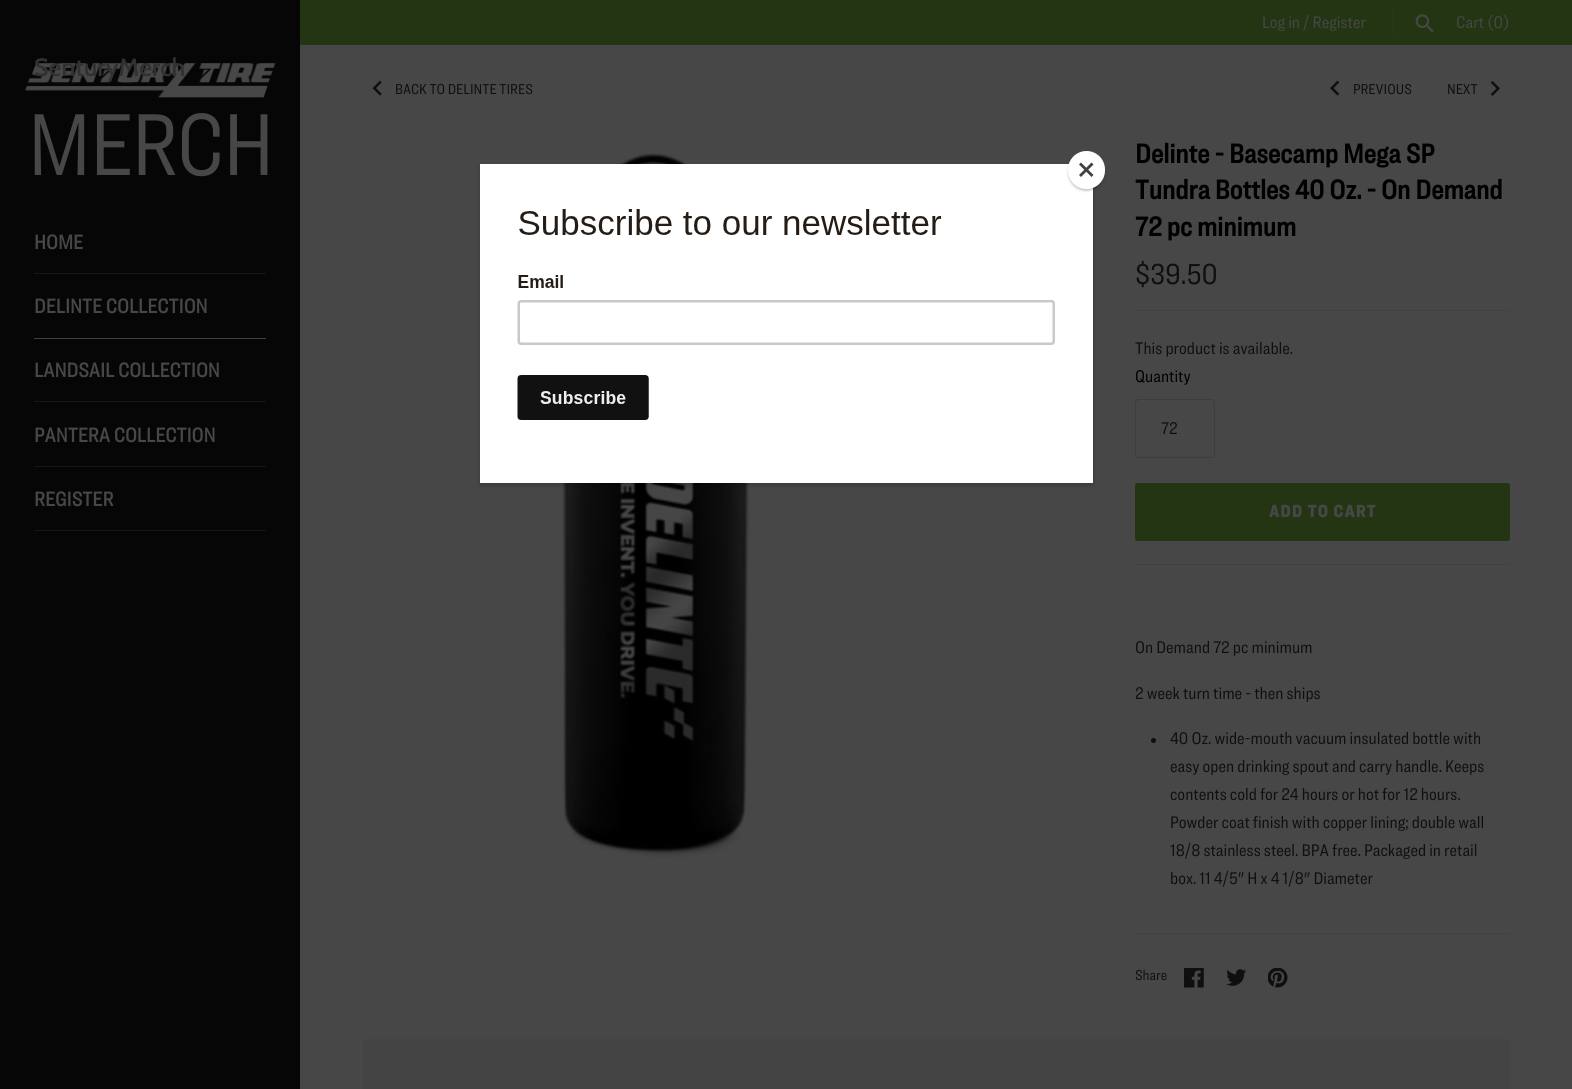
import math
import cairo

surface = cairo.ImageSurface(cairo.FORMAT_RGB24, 1572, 1089)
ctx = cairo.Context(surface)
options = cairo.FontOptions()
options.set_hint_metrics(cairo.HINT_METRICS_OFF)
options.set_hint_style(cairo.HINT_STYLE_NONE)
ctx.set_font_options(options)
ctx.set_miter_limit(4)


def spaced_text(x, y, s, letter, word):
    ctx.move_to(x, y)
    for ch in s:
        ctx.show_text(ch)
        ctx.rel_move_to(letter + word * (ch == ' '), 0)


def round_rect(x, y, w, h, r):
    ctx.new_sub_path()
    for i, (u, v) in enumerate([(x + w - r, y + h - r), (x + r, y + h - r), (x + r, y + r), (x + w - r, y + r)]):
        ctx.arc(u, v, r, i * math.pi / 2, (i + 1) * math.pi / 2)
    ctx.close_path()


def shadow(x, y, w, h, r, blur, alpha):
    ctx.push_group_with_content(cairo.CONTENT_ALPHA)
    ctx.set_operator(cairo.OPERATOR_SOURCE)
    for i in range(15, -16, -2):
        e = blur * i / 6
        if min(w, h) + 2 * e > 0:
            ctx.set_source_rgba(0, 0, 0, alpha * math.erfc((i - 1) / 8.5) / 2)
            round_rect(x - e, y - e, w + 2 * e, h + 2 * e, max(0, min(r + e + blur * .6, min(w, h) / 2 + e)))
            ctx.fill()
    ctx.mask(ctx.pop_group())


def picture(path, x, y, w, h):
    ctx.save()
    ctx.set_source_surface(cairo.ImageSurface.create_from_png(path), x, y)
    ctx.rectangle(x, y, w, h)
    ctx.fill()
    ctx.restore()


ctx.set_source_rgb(0.278, 0.278, 0.278)
ctx.paint()
ctx.set_source_rgb(0.137, 0.208, 0.071)
ctx.rectangle(300, 0, 1272, 45)
ctx.fill()
ctx.select_font_face("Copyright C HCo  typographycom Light")
ctx.set_font_size(17.5)
ctx.set_source_rgb(0.278, 0.278, 0.278)
ctx.move_to(1262, 28)
ctx.show_text("Log in / Register")
ctx.set_source_rgb(0.173, 0.224, 0.125)
ctx.rectangle(1393, 8, 1, 27)
ctx.fill()
picture("img1.png", 1415, 14, 19, 19)
ctx.set_source_rgb(0.278, 0.278, 0.278)
ctx.move_to(1456, 28)
ctx.show_text("Cart (0)")
ctx.set_source_rgb(0.024, 0.024, 0.024)
ctx.rectangle(0, 0, 300, 1089)
ctx.fill()
picture("img2.png", 25, 63, 251, 35)
ctx.select_font_face("Cabin SemiBold")
ctx.set_font_size(25)
ctx.set_source_rgb(0.192, 0.192, 0.192)
ctx.move_to(34, 76)
ctx.show_text("SenturyMerch")
ctx.select_font_face("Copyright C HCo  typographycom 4", cairo.FONT_SLANT_NORMAL, cairo.FONT_WEIGHT_BOLD)
ctx.set_font_size(87.5)
ctx.set_source_rgb(0.278, 0.278, 0.278)
ctx.move_to(27, 175)
ctx.show_text("MERCH")
ctx.set_source_rgb(0.086, 0.086, 0.086)
ctx.rectangle(34, 273, 232, 1)
ctx.fill()
ctx.select_font_face("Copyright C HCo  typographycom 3", cairo.FONT_SLANT_NORMAL, cairo.FONT_WEIGHT_BOLD)
ctx.set_font_size(20.75)
ctx.set_source_rgb(0.278, 0.278, 0.278)
ctx.move_to(34, 249)
ctx.show_text("HOME")
ctx.set_source_rgb(0.255, 0.255, 0.255)
ctx.rectangle(34, 338, 232, 1)
ctx.fill()
ctx.set_source_rgb(0.278, 0.278, 0.278)
ctx.move_to(34, 313)
ctx.show_text("DELINTE COLLECTION")
ctx.set_source_rgb(0.086, 0.086, 0.086)
ctx.rectangle(34, 401, 232, 1)
ctx.fill()
ctx.set_source_rgb(0.278, 0.278, 0.278)
ctx.move_to(34, 377)
ctx.show_text("LANDSAIL COLLECTION")
ctx.set_source_rgb(0.086, 0.086, 0.086)
ctx.rectangle(34, 466, 232, 1)
ctx.fill()
ctx.set_source_rgb(0.278, 0.278, 0.278)
ctx.move_to(34, 442)
ctx.show_text("PANTERA COLLECTION")
ctx.set_source_rgb(0.086, 0.086, 0.086)
ctx.rectangle(34, 530, 232, 1)
ctx.fill()
ctx.set_source_rgb(0.278, 0.278, 0.278)
ctx.move_to(34, 506)
ctx.show_text("REGISTER")
picture("img3.png", 372, 80, 10, 16)
ctx.select_font_face("Copyright C HCo  typographycom Light")
ctx.set_font_size(14.9)
ctx.set_source_rgb(0.059, 0.059, 0.059)
ctx.move_to(395, 94)
ctx.show_text("BACK TO DELINTE TIRES")
picture("img4.png", 1330, 80, 10, 16)
ctx.move_to(1353, 94)
ctx.show_text("PREVIOUS")
ctx.move_to(1447, 94)
ctx.show_text("NEXT")
picture("img5.png", 1490, 81, 10, 15)
picture("img6.png", 562, 153, 189, 706)
ctx.select_font_face("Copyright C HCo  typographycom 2", cairo.FONT_SLANT_NORMAL, cairo.FONT_WEIGHT_BOLD)
ctx.set_font_size(28)
ctx.set_source_rgb(0, 0, 0)
ctx.move_to(1135, 163)
ctx.show_text("Delinte - Basecamp Mega SP")
ctx.move_to(1135, 199)
ctx.show_text("Tundra Bottles 40 Oz. - On Demand")
ctx.move_to(1135, 236)
ctx.show_text("72 pc minimum")
ctx.select_font_face("Copyright C HCo  typographycom Light")
ctx.set_font_size(30)
ctx.set_source_rgb(0.059, 0.059, 0.059)
ctx.move_to(1135, 284)
ctx.show_text("$39.50")
ctx.set_source_rgb(0.255, 0.255, 0.255)
ctx.rectangle(1135, 310, 375, 1)
ctx.fill()
ctx.set_font_size(17.5)
ctx.set_source_rgb(0.059, 0.059, 0.059)
ctx.move_to(1135, 354)
ctx.show_text("This product is available.")
ctx.set_source_rgb(0, 0, 0)
ctx.move_to(1135, 382)
ctx.show_text("Quantity")
round_rect(1135.5, 399.5, 79, 58, 3.5)
ctx.set_source_rgb(0.239, 0.239, 0.239)
ctx.set_line_width(1)
ctx.stroke()
ctx.set_source_rgb(0.059, 0.059, 0.059)
ctx.move_to(1161, 434)
ctx.show_text("72")
ctx.set_source_rgb(0.137, 0.208, 0.071)
round_rect(1135.5, 483.5, 374, 57, 2)
ctx.fill_preserve()
ctx.stroke()
ctx.select_font_face("Copyright C HCo  typographycom", cairo.FONT_SLANT_NORMAL, cairo.FONT_WEIGHT_BOLD)
ctx.set_source_rgb(0.278, 0.278, 0.278)
spaced_text(1269, 517, "ADD TO CART", 1.25, 0)
ctx.set_source_rgb(0.255, 0.255, 0.255)
ctx.rectangle(1135, 564, 375, 1)
ctx.fill()
ctx.select_font_face("Copyright C HCo  typographycom Light")
ctx.set_source_rgb(0.059, 0.059, 0.059)
ctx.move_to(1135, 653)
ctx.show_text("On Demand 72 pc minimum")
ctx.move_to(1135, 699)
ctx.show_text("2 week turn time - then ships")
ctx.new_path()
ctx.arc(1153.5, 740.5, 2.5, 0, 2 * math.pi)
ctx.fill()
ctx.move_to(1170, 744)
ctx.show_text("40 Oz. wide-mouth vacuum insulated bottle with")
ctx.move_to(1170, 772)
ctx.show_text("easy open drinking spout and carry handle. Keeps")
ctx.move_to(1170, 800)
ctx.show_text("contents cold for 24 hours or hot for 12 hours.")
ctx.move_to(1170, 828)
ctx.show_text("Powder coat finish with copper lining; double wall")
ctx.move_to(1170, 856)
ctx.show_text("18/8 stainless steel. BPA free. Packaged in retail")
ctx.move_to(1170, 884)
ctx.show_text("box. 11 4/5\" H x 4 1/8\" Diameter")
ctx.set_source_rgb(0.255, 0.255, 0.255)
ctx.rectangle(1135, 933, 375, 1)
ctx.fill()
ctx.set_font_size(14.9)
ctx.set_source_rgb(0.059, 0.059, 0.059)
ctx.move_to(1135, 980)
ctx.show_text("Share")
picture("img7.png", 1184, 968, 20, 20)
picture("img8.png", 1226, 969, 20, 17)
picture("img9.png", 1268, 968, 20, 20)
ctx.set_source_rgb(0.267, 0.267, 0.267)
ctx.rectangle(363, 1039, 1147, 50)
ctx.fill()
ctx.set_source_rgb(0, 0, 0)
shadow(480, 166, 613, 319, 0, 2.5, 0.2)
picture("img10.png", 480, 164, 613, 319)
shadow(1068, 154, 37, 37, 18.5, 1, 0.2)
ctx.set_source_rgb(1, 1, 1)
round_rect(1068, 151, 37, 38, 18.5)
ctx.fill()
ctx.set_source_rgb(0.255, 0.255, 0.255)
ctx.new_path()
ctx.move_to(1091.5, 162.5)
ctx.line_to(1093.5, 164.5)
ctx.line_to(1081, 177)
ctx.line_to(1079, 175)
ctx.close_path()
ctx.fill()
ctx.new_path()
ctx.move_to(1079, 164.5)
ctx.line_to(1081, 162.5)
ctx.line_to(1093.5, 175)
ctx.line_to(1091.5, 177)
ctx.close_path()
ctx.fill()
surface.write_to_png("page.png")
